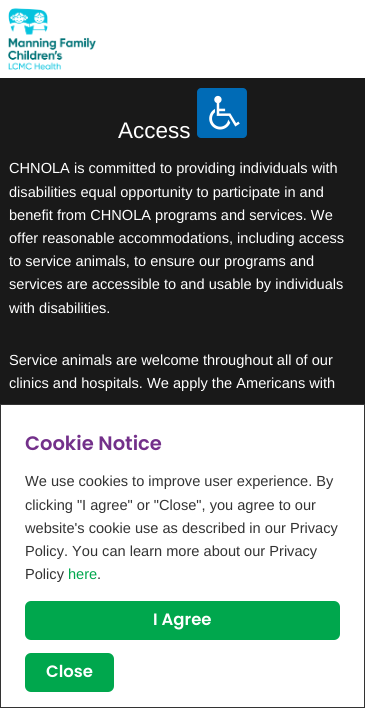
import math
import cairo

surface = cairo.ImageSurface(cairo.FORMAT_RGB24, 365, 708)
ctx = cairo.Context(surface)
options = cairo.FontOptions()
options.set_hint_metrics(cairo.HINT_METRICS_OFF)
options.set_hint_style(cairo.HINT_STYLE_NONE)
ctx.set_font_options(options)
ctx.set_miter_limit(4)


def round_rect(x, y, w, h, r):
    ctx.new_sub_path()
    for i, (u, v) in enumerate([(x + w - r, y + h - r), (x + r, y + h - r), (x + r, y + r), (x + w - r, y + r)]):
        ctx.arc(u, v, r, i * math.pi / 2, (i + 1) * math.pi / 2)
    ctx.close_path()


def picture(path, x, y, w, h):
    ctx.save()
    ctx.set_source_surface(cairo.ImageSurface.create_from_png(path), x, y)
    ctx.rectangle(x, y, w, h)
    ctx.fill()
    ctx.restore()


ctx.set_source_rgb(0.098, 0.098, 0.098)
ctx.paint()
ctx.set_source_rgb(1, 1, 1)
ctx.rectangle(0, 0, 365, 78)
ctx.fill()
picture("img1.png", 8, 8, 88, 62)
ctx.select_font_face("Liberation Sans")
ctx.set_font_size(22.5)
ctx.move_to(118, 138)
ctx.show_text("Access")
picture("img2.png", 197, 88, 50, 50)
ctx.set_font_size(14.6)
ctx.move_to(9, 173)
ctx.show_text("CHNOLA is committed to providing individuals with")
ctx.move_to(9, 197)
ctx.show_text("disabilities equal opportunity to participate in and")
ctx.move_to(9, 220)
ctx.show_text("benefit from CHNOLA programs and services. We")
ctx.move_to(9, 243)
ctx.show_text("offer reasonable accommodations, including access")
ctx.move_to(9, 266)
ctx.show_text("to service animals, to ensure our programs and")
ctx.move_to(9, 289)
ctx.show_text("services are accessible to and usable by individuals")
ctx.move_to(9, 313)
ctx.show_text("with disabilities.")
ctx.move_to(9, 365)
ctx.show_text("Service animals are welcome throughout all of our")
ctx.move_to(9, 388)
ctx.show_text("clinics and hospitals. We apply the Americans with")
ctx.rectangle(0.5, 404.5, 364, 303)
ctx.fill_preserve()
ctx.set_source_rgb(0.2, 0.2, 0.2)
ctx.set_line_width(1)
ctx.stroke()
ctx.select_font_face("Poppins SemiBold")
ctx.set_font_size(19.5)
ctx.set_source_rgb(0.451, 0.188, 0.541)
ctx.move_to(25, 450)
ctx.show_text("Cookie Notice")
ctx.select_font_face("Liberation Sans")
ctx.set_font_size(14.6)
ctx.set_source_rgb(0.2, 0.2, 0.2)
ctx.move_to(25, 486)
ctx.show_text("We use cookies to improve user experience. By")
ctx.move_to(25, 510)
ctx.show_text("clicking \"I agree\" or \"Close\", you agree to our")
ctx.move_to(25, 533)
ctx.show_text("website's cookie use as described in our Privacy")
ctx.move_to(25, 556)
ctx.show_text("Policy. You can learn more about our Privacy")
ctx.move_to(25, 579)
ctx.show_text("Policy")
ctx.set_source_rgb(0, 0.655, 0.302)
ctx.move_to(68, 579)
ctx.show_text("here")
ctx.set_source_rgb(0.2, 0.2, 0.2)
ctx.move_to(97, 579)
ctx.show_text(".")
ctx.set_source_rgb(0, 0.655, 0.302)
round_rect(25, 601, 315, 39, 6)
ctx.fill()
ctx.select_font_face("Poppins SemiBold")
ctx.set_font_size(16.5)
ctx.set_source_rgb(1, 1, 1)
ctx.move_to(153, 625)
ctx.show_text("I Agree")
ctx.set_source_rgb(0, 0.655, 0.302)
round_rect(25, 653, 89, 39, 6)
ctx.fill()
ctx.set_source_rgb(1, 1, 1)
ctx.move_to(46, 677)
ctx.show_text("Close")
surface.write_to_png("page.png")
